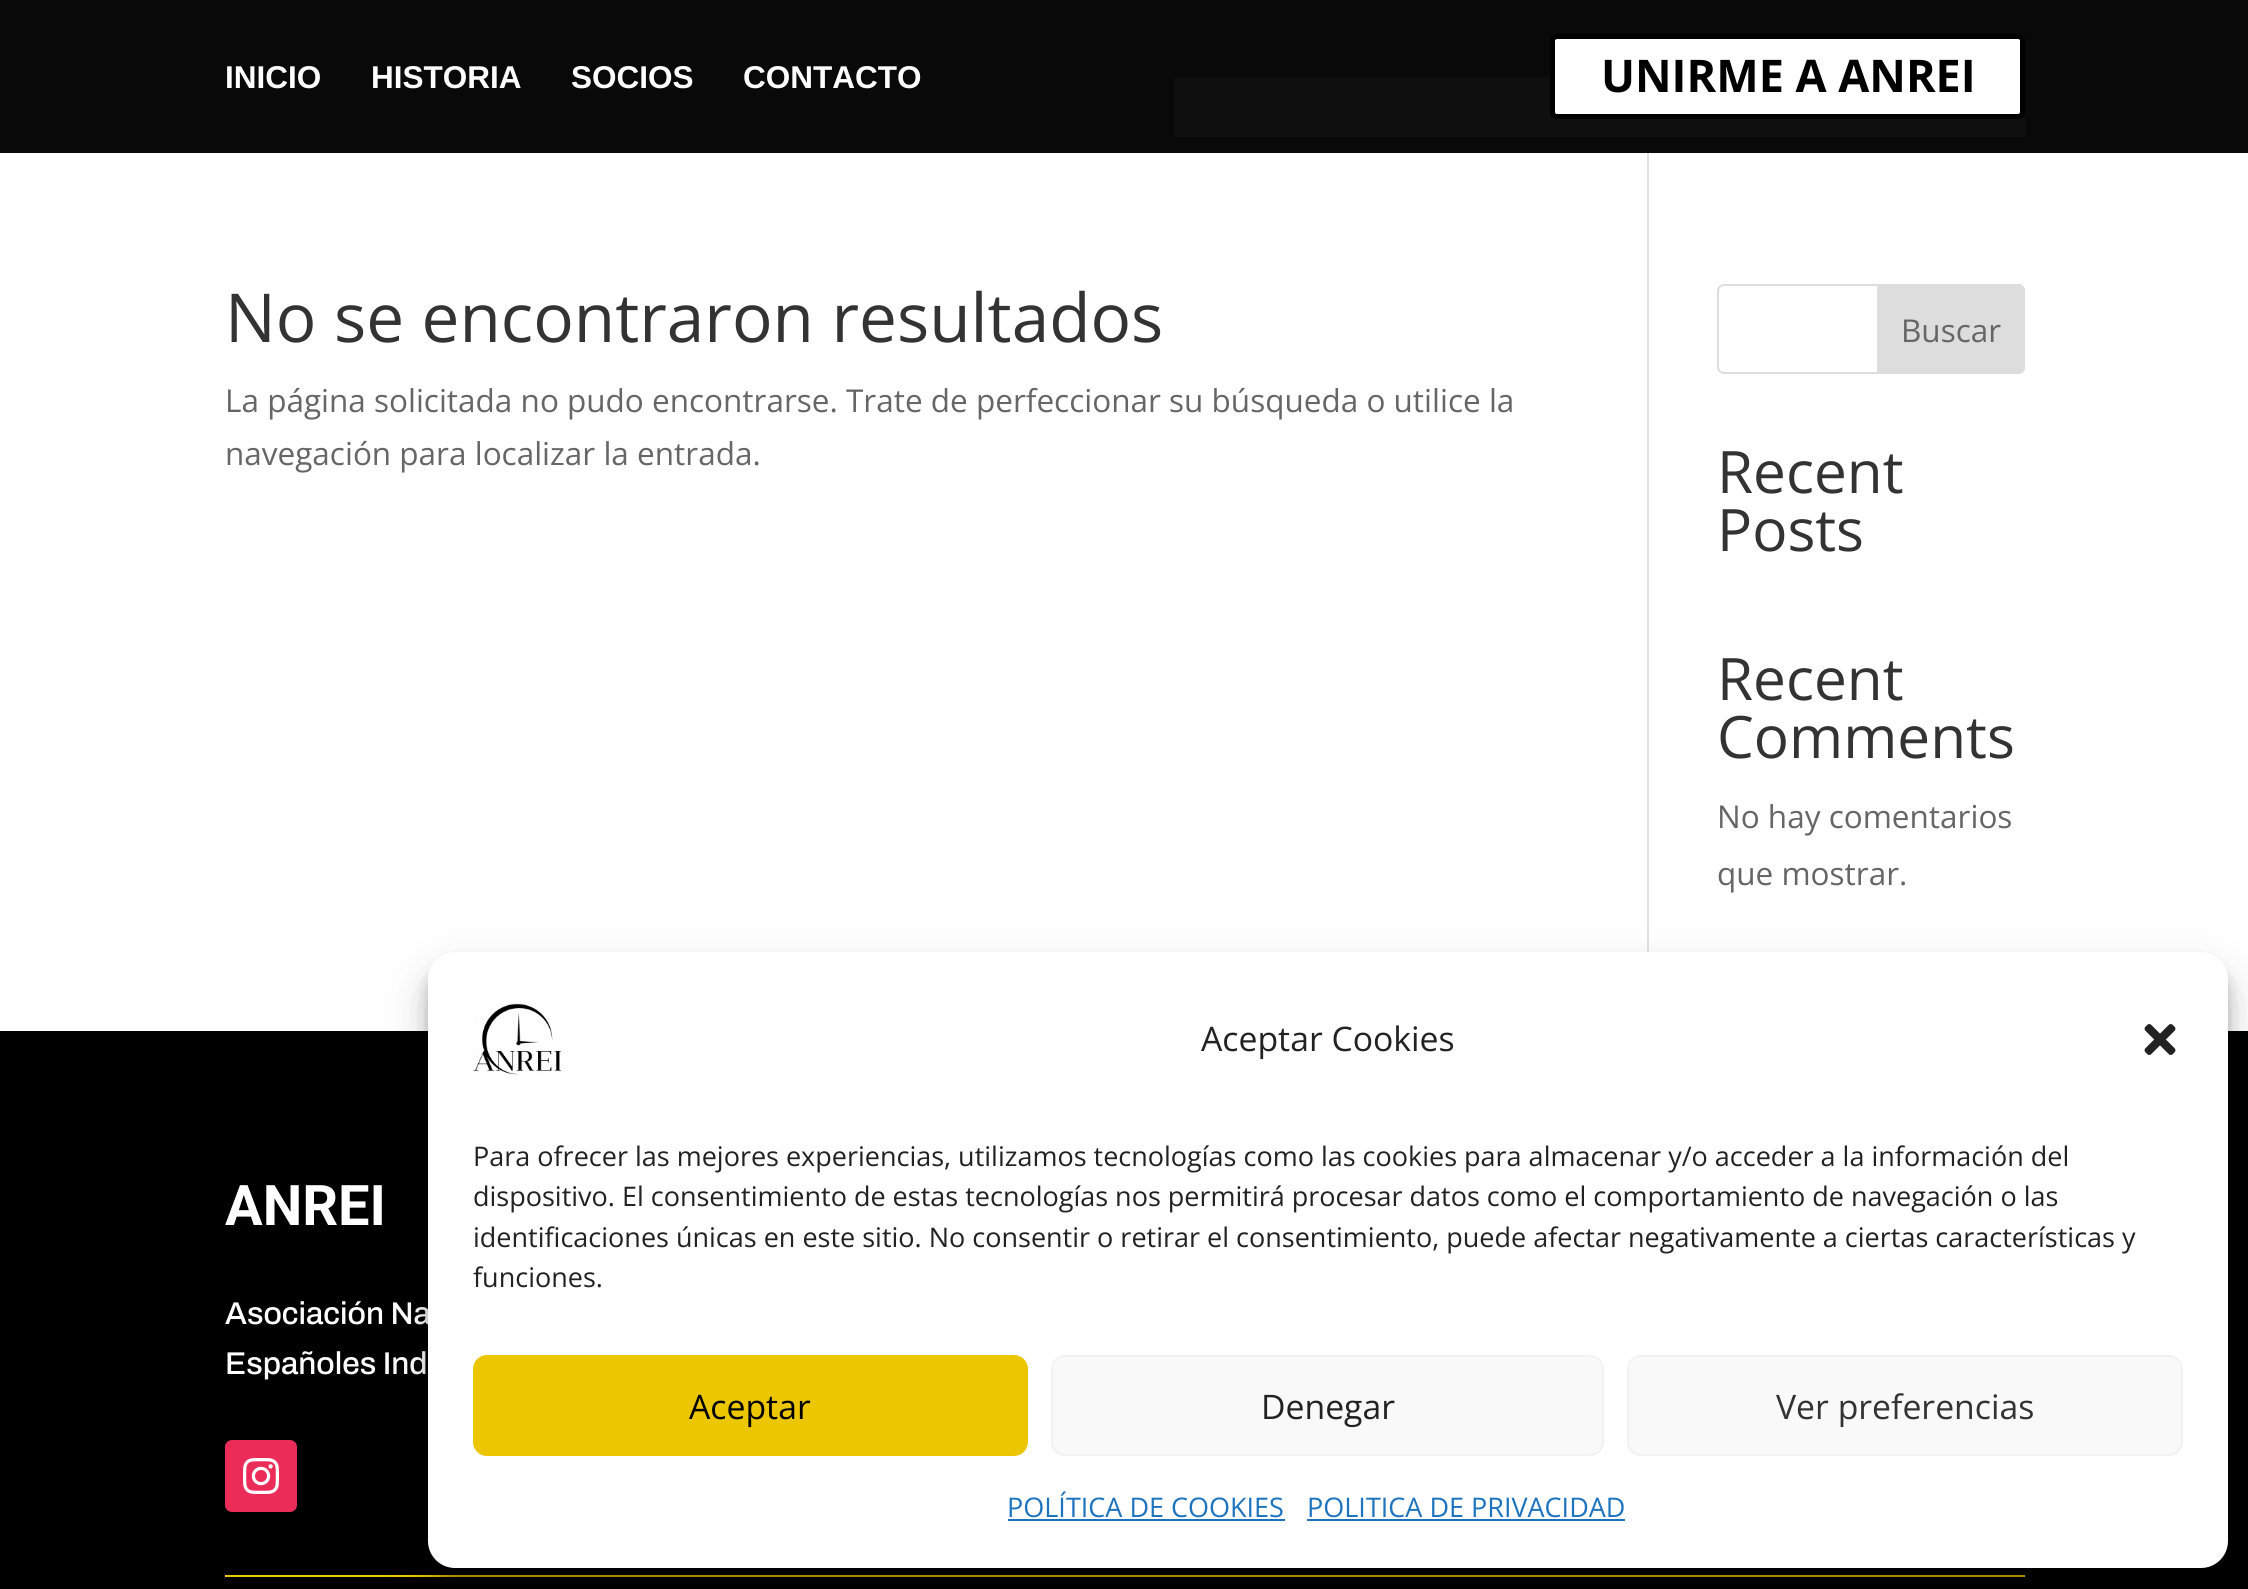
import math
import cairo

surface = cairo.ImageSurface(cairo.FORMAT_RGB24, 2248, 1589)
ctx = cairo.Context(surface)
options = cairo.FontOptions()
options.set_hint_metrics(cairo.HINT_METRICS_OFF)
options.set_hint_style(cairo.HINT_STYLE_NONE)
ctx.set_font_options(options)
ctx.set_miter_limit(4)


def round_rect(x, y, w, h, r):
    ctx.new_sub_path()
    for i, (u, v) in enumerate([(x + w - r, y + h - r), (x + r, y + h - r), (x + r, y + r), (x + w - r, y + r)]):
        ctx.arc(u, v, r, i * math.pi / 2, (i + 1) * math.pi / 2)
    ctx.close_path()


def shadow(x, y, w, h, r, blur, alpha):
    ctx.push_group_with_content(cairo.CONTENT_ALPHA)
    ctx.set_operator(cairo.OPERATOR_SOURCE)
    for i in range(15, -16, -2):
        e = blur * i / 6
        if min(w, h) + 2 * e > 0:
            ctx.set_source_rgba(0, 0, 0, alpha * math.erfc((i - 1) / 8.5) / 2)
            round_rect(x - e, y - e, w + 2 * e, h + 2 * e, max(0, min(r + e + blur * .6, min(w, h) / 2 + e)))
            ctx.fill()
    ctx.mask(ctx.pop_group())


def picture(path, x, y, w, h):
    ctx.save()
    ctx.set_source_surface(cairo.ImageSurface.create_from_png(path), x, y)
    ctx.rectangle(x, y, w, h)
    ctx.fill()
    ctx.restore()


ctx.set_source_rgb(1, 1, 1)
ctx.paint()
ctx.set_source_rgb(0.039, 0.039, 0.039)
ctx.rectangle(0, 0, 2248, 153)
ctx.fill()
ctx.select_font_face("Liberation Sans", cairo.FONT_SLANT_NORMAL, cairo.FONT_WEIGHT_BOLD)
ctx.set_font_size(31.5)
ctx.set_source_rgb(1, 1, 1)
ctx.move_to(225, 88)
ctx.show_text("INICIO")
ctx.move_to(371, 88)
ctx.show_text("HISTORIA")
ctx.move_to(571, 88)
ctx.show_text("SOCIOS")
ctx.move_to(743, 88)
ctx.show_text("CONTACTO")
ctx.set_source_rgb(0.059, 0.059, 0.059)
ctx.rectangle(1175, 77, 850, 60)
ctx.fill()
ctx.set_source_rgb(1, 1, 1)
round_rect(1552.5, 36.5, 470, 80, 4.5)
ctx.fill_preserve()
ctx.set_source_rgb(0, 0, 0)
ctx.set_line_width(5)
ctx.stroke()
ctx.select_font_face("Open Sans", cairo.FONT_SLANT_NORMAL, cairo.FONT_WEIGHT_BOLD)
ctx.set_font_size(45)
ctx.move_to(1601, 92)
ctx.show_text("UNIRME A ANREI")
ctx.set_source_rgb(0.886, 0.886, 0.886)
ctx.rectangle(1647, 153, 2, 799)
ctx.fill()
ctx.select_font_face("Open Sans")
ctx.set_font_size(67.5)
ctx.set_source_rgb(0.2, 0.2, 0.2)
ctx.move_to(225, 342)
ctx.show_text("No se encontraron resultados")
ctx.set_font_size(31.5)
ctx.set_source_rgb(0.4, 0.4, 0.4)
ctx.move_to(225, 412)
ctx.show_text("La página solicitada no pudo encontrarse. Trate de perfeccionar su búsqueda o utilice la")
ctx.move_to(225, 465)
ctx.show_text("navegación para localizar la entrada.")
round_rect(1718, 285, 306, 88, 6)
ctx.set_source_rgb(0.867, 0.867, 0.867)
ctx.set_line_width(2)
ctx.stroke()
ctx.new_path()
ctx.move_to(1878, 285)
ctx.line_to(2018, 285)
ctx.curve_to(2021.5, 285, 2024, 287.5, 2024, 291)
ctx.line_to(2024, 367)
ctx.curve_to(2024, 370.5, 2021.5, 373, 2018, 373)
ctx.line_to(1878, 373)
ctx.close_path()
ctx.fill_preserve()
ctx.stroke()
ctx.set_source_rgb(0.4, 0.4, 0.4)
ctx.move_to(1901, 342)
ctx.show_text("Buscar")
ctx.set_font_size(58.5)
ctx.set_source_rgb(0.2, 0.2, 0.2)
ctx.move_to(1717, 493)
ctx.show_text("Recent")
ctx.move_to(1717, 551)
ctx.show_text("Posts")
ctx.move_to(1717, 700)
ctx.show_text("Recent")
ctx.move_to(1717, 758)
ctx.show_text("Comments")
ctx.set_font_size(31.5)
ctx.set_source_rgb(0.4, 0.4, 0.4)
ctx.move_to(1717, 828)
ctx.show_text("No hay comentarios")
ctx.move_to(1717, 885)
ctx.show_text("que mostrar.")
ctx.set_source_rgb(0, 0, 0)
ctx.rectangle(0, 1031, 2248, 558)
ctx.fill()
ctx.select_font_face("Roboto", cairo.FONT_SLANT_NORMAL, cairo.FONT_WEIGHT_BOLD)
ctx.set_font_size(56)
ctx.set_source_rgb(1, 1, 1)
ctx.move_to(225, 1225)
ctx.show_text("ANREI")
ctx.select_font_face("Archivo Medium")
ctx.set_font_size(31.5)
ctx.move_to(225, 1324)
ctx.show_text("Asociación Na")
ctx.move_to(225, 1374)
ctx.show_text("Españoles Ind")
ctx.set_source_rgb(0.918, 0.173, 0.349)
round_rect(225, 1440, 72, 72, 7)
ctx.fill()
picture("img1.png", 243, 1458, 36, 36)
ctx.set_source_rgb(0.925, 0.776, 0)
ctx.rectangle(225, 1575, 1800, 2)
ctx.fill()
ctx.set_source_rgb(0, 0, 0)
shadow(428, 965, 1800, 617, 27, 7, 0.23)
shadow(428, 974, 1800, 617, 27, 22.5, 0.19)
ctx.set_source_rgb(1, 1, 1)
round_rect(428, 952, 1800, 616, 27)
ctx.fill()
picture("img2.png", 473, 1003, 88, 72)
ctx.select_font_face("Open Sans")
ctx.set_font_size(33.75)
ctx.set_source_rgb(0.133, 0.133, 0.133)
ctx.move_to(1201, 1051)
ctx.show_text("Aceptar Cookies")
picture("img3.png", 2144, 1024, 32, 31)
ctx.set_font_size(27)
ctx.move_to(473, 1166)
ctx.show_text("Para ofrecer las mejores experiencias, utilizamos tecnologías como las cookies para almacenar y/o acceder a la información del")
ctx.move_to(473, 1206)
ctx.show_text("dispositivo. El consentimiento de estas tecnologías nos permitirá procesar datos como el comportamiento de navegación o las")
ctx.move_to(473, 1247)
ctx.show_text("identificaciones únicas en este sitio. No consentir o retirar el consentimiento, puede afectar negativamente a ciertas características y")
ctx.move_to(473, 1287)
ctx.show_text("funciones.")
ctx.set_source_rgb(0.925, 0.776, 0)
round_rect(474, 1356, 553, 99, 13)
ctx.fill_preserve()
ctx.stroke()
ctx.set_font_size(33.75)
ctx.set_source_rgb(0, 0, 0)
ctx.move_to(689, 1419)
ctx.show_text("Aceptar")
ctx.set_source_rgb(0.976, 0.976, 0.976)
round_rect(1052, 1356, 551, 99, 13)
ctx.fill_preserve()
ctx.set_source_rgb(0.949, 0.949, 0.949)
ctx.stroke()
ctx.set_source_rgb(0.133, 0.133, 0.133)
ctx.move_to(1261, 1419)
ctx.show_text("Denegar")
ctx.set_source_rgb(0.976, 0.976, 0.976)
round_rect(1628, 1356, 554, 99, 13)
ctx.fill_preserve()
ctx.set_source_rgb(0.949, 0.949, 0.949)
ctx.stroke()
ctx.set_source_rgb(0.2, 0.2, 0.2)
ctx.move_to(1776, 1419)
ctx.show_text("Ver preferencias")
ctx.set_font_size(27)
ctx.set_source_rgb(0.118, 0.451, 0.745)
ctx.move_to(1007, 1517)
ctx.show_text("POLÍTICA DE COOKIES")
ctx.rectangle(1008, 1519, 277, 2)
ctx.fill()
ctx.move_to(1307, 1517)
ctx.show_text("POLITICA DE PRIVACIDAD")
ctx.rectangle(1307, 1519, 318, 2)
ctx.fill()
surface.write_to_png("page.png")
